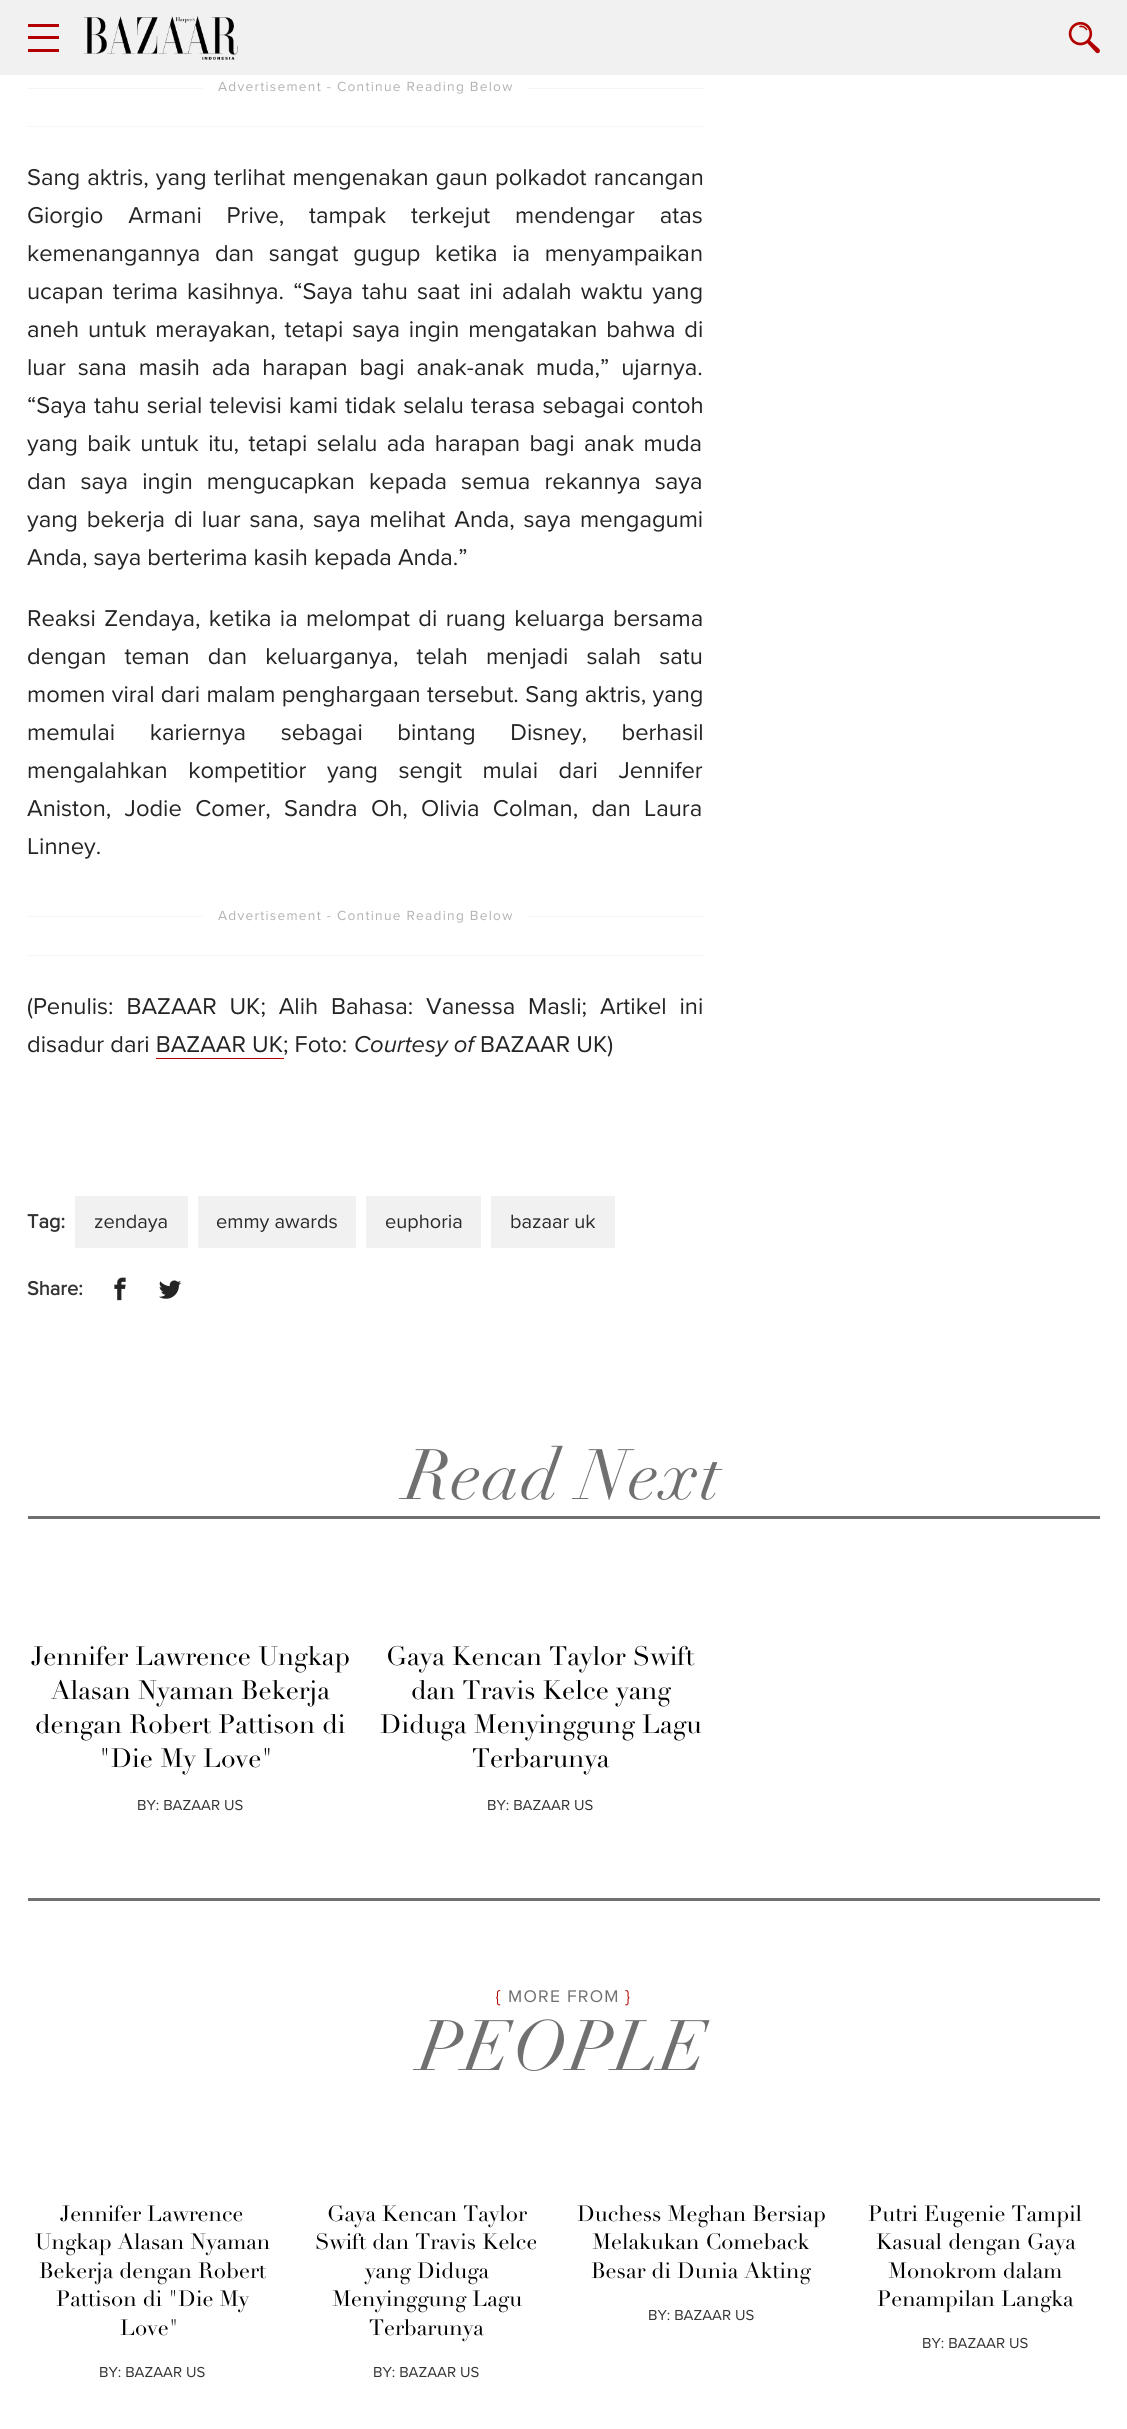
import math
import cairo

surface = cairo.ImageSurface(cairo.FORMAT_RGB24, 1127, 2429)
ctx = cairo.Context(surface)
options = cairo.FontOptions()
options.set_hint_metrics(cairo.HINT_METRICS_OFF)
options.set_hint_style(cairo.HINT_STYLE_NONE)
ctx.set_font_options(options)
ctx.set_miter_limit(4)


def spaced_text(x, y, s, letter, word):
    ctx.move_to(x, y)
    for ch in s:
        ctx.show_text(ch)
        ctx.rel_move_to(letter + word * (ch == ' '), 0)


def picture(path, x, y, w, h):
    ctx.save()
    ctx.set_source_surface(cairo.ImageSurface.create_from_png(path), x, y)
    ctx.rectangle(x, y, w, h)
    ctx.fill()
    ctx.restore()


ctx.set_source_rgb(1, 1, 1)
ctx.paint()
ctx.set_source_rgb(0.945, 0.945, 0.945)
ctx.rectangle(0, 0, 1127, 75)
ctx.fill()
ctx.set_source_rgb(0.698, 0, 0)
ctx.rectangle(28, 36, 31, 3)
ctx.fill()
ctx.rectangle(28, 24, 31, 3)
ctx.fill()
ctx.rectangle(28, 49, 31, 3)
ctx.fill()
picture("img1.png", 83, 16, 155, 44)
picture("img2.png", 1068, 22, 32, 32)
ctx.set_source_rgb(0.961, 0.961, 0.961)
ctx.rectangle(28, 88, 676, 1)
ctx.fill()
ctx.rectangle(28, 126, 676, 1)
ctx.fill()
ctx.set_source_rgb(1, 1, 1)
ctx.rectangle(203, 88, 325, 1)
ctx.fill()
ctx.select_font_face("Proxima Nova")
ctx.set_font_size(13.75)
ctx.set_source_rgb(0.698, 0.698, 0.698)
spaced_text(218, 91, "Advertisement - Continue Reading Below", 1.25, 0)
ctx.set_font_size(23.75)
ctx.set_source_rgb(0.141, 0.141, 0.141)
spaced_text(27, 185, "Sang aktris, yang terlihat mengenakan gaun polkadot rancangan", 0, 1)
spaced_text(27, 223, "Giorgio Armani Prive, tampak terkejut mendengar atas", 0, 18.75)
spaced_text(27, 261, "kemenangannya dan sangat gugup ketika ia menyampaikan", 0, 8.5)
spaced_text(27, 299, "ucapan terima kasihnya. “Saya tahu saat ini adalah waktu yang", 0, 3)
spaced_text(27, 337, "aneh untuk merayakan, tetapi saya ingin mengatakan bahwa di", 0, 2.75)
spaced_text(27, 375, "luar sana masih ada harapan bagi anak-anak muda,” ujarnya.", 0, 5.75)
spaced_text(27, 413, "“Saya tahu serial televisi kami tidak selalu terasa sebagai contoh", 0, 1)
spaced_text(27, 451, "yang baik untuk itu, tetapi selalu ada harapan bagi anak muda", 0, 3.25)
spaced_text(27, 489, "dan saya ingin mengucapkan kepada semua rekannya saya", 0, 8)
spaced_text(27, 527, "yang bekerja di luar sana, saya melihat Anda, saya mengagumi", 0, 2.75)
ctx.move_to(27, 565)
ctx.show_text("Anda, saya berterima kasih kepada Anda.”")
spaced_text(27, 626, "Reaksi Zendaya, ketika ia melompat di ruang keluarga bersama", 0, 2.25)
spaced_text(27, 664, "dengan teman dan keluarganya, telah menjadi salah satu", 0, 12)
spaced_text(27, 702, "momen viral dari malam penghargaan tersebut. Sang aktris, yang", 0, 0.25)
spaced_text(27, 740, "memulai kariernya sebagai bintang Disney, berhasil", 0, 28.5)
spaced_text(27, 778, "mengalahkan kompetitior yang sengit mulai dari Jennifer", 0, 14.5)
spaced_text(27, 816, "Aniston, Jodie Comer, Sandra Oh, Olivia Colman, dan Laura", 0, 7.25)
ctx.move_to(27, 854)
ctx.show_text("Linney.")
ctx.set_source_rgb(0.961, 0.961, 0.961)
ctx.rectangle(28, 916, 676, 1)
ctx.fill()
ctx.rectangle(28, 955, 676, 1)
ctx.fill()
ctx.set_source_rgb(1, 1, 1)
ctx.rectangle(203, 916, 325, 1)
ctx.fill()
ctx.set_font_size(13.75)
ctx.set_source_rgb(0.698, 0.698, 0.698)
spaced_text(218, 920, "Advertisement - Continue Reading Below", 1.25, 0)
ctx.set_font_size(23.75)
ctx.set_source_rgb(0.141, 0.141, 0.141)
spaced_text(27, 1014, "(Penulis: BAZAAR UK; Alih Bahasa: Vanessa Masli; Artikel ini", 0, 6.75)
ctx.move_to(27, 1052)
ctx.show_text("disadur dari BAZAAR UK")
ctx.move_to(283, 1052)
ctx.show_text("; Foto:")
ctx.select_font_face("Proxima Nova", cairo.FONT_SLANT_ITALIC)
ctx.move_to(354, 1052)
ctx.show_text("Courtesy of")
ctx.select_font_face("Proxima Nova")
ctx.move_to(480, 1052)
ctx.show_text("BAZAAR UK)")
ctx.set_source_rgb(0.698, 0, 0)
ctx.rectangle(156, 1058, 128, 1)
ctx.fill()
ctx.select_font_face("Proxima Nova", cairo.FONT_SLANT_NORMAL, cairo.FONT_WEIGHT_BOLD)
ctx.set_font_size(20)
ctx.set_source_rgb(0.2, 0.2, 0.2)
ctx.move_to(27, 1228)
ctx.show_text("Tag:")
ctx.set_source_rgb(0.945, 0.945, 0.945)
ctx.rectangle(75, 1196, 113, 52)
ctx.fill()
ctx.select_font_face("Proxima Nova")
ctx.set_source_rgb(0.169, 0.169, 0.169)
ctx.move_to(94, 1228)
ctx.show_text("zendaya")
ctx.set_source_rgb(0.945, 0.945, 0.945)
ctx.rectangle(198, 1196, 158, 52)
ctx.fill()
ctx.set_source_rgb(0.169, 0.169, 0.169)
ctx.move_to(216, 1228)
ctx.show_text("emmy awards")
ctx.set_source_rgb(0.945, 0.945, 0.945)
ctx.rectangle(366, 1196, 115, 52)
ctx.fill()
ctx.set_source_rgb(0.169, 0.169, 0.169)
ctx.move_to(385, 1228)
ctx.show_text("euphoria")
ctx.set_source_rgb(0.945, 0.945, 0.945)
ctx.rectangle(491, 1196, 124, 52)
ctx.fill()
ctx.set_source_rgb(0.169, 0.169, 0.169)
ctx.move_to(510, 1228)
ctx.show_text("bazaar uk")
ctx.select_font_face("Proxima Nova", cairo.FONT_SLANT_NORMAL, cairo.FONT_WEIGHT_BOLD)
ctx.set_source_rgb(0.2, 0.2, 0.2)
ctx.move_to(27, 1295)
ctx.show_text("Share:")
picture("img3.png", 114, 1277, 12, 24)
picture("img4.png", 159, 1280, 23, 19)
ctx.set_source_rgb(0.439, 0.439, 0.439)
ctx.rectangle(28, 1516, 1072, 3)
ctx.fill()
ctx.select_font_face("Didot", cairo.FONT_SLANT_ITALIC)
ctx.set_font_size(70)
spaced_text(405, 1499, "Read Next", 1.25, 0)
ctx.rectangle(28, 1898, 1072, 3)
ctx.fill()
ctx.select_font_face("Didot")
ctx.set_font_size(26.25)
ctx.set_source_rgb(0, 0, 0)
ctx.move_to(31, 1665)
ctx.show_text("Jennifer Lawrence Ungkap")
ctx.move_to(51, 1699)
ctx.show_text("Alasan Nyaman Bekerja")
ctx.move_to(35, 1733)
ctx.show_text("dengan Robert Pattison di")
ctx.move_to(99, 1767)
ctx.show_text("\"Die My Love\"")
ctx.select_font_face("Proxima Nova")
ctx.set_font_size(15)
ctx.set_source_rgb(0.2, 0.2, 0.2)
ctx.move_to(137, 1810)
ctx.show_text("BY: BAZAAR US")
ctx.select_font_face("Didot")
ctx.set_font_size(26.25)
ctx.set_source_rgb(0, 0, 0)
ctx.move_to(386, 1665)
ctx.show_text("Gaya Kencan Taylor Swift")
ctx.move_to(411, 1699)
ctx.show_text("dan Travis Kelce yang")
ctx.move_to(380, 1733)
ctx.show_text("Diduga Menyinggung Lagu")
ctx.move_to(472, 1767)
ctx.show_text("Terbarunya")
ctx.select_font_face("Proxima Nova")
ctx.set_font_size(15)
ctx.set_source_rgb(0.2, 0.2, 0.2)
ctx.move_to(487, 1810)
ctx.show_text("BY: BAZAAR US")
ctx.set_font_size(17.5)
ctx.set_source_rgb(0.698, 0, 0)
spaced_text(496, 2002, "{", 1.25, 0)
ctx.set_source_rgb(0.439, 0.439, 0.439)
spaced_text(508, 2002, "MORE FROM", 1.25, 0)
ctx.set_source_rgb(0.698, 0, 0)
spaced_text(625, 2002, "}", 1.25, 0)
ctx.select_font_face("Didot", cairo.FONT_SLANT_ITALIC)
ctx.set_font_size(70)
ctx.set_source_rgb(0.439, 0.439, 0.439)
spaced_text(419, 2070, "PEOPLE", 1.25, 0)
ctx.select_font_face("Didot")
ctx.set_font_size(21.9)
ctx.set_source_rgb(0, 0, 0)
ctx.move_to(60, 2221)
ctx.show_text("Jennifer Lawrence")
ctx.move_to(35, 2249)
ctx.show_text("Ungkap Alasan Nyaman")
ctx.move_to(39, 2278)
ctx.show_text("Bekerja dengan Robert")
ctx.move_to(56, 2306)
ctx.show_text("Pattison di \"Die My")
ctx.move_to(120, 2335)
ctx.show_text("Love\"")
ctx.select_font_face("Proxima Nova")
ctx.set_font_size(15)
ctx.set_source_rgb(0.2, 0.2, 0.2)
ctx.move_to(99, 2377)
ctx.show_text("BY: BAZAAR US")
ctx.select_font_face("Didot")
ctx.set_font_size(21.9)
ctx.set_source_rgb(0, 0, 0)
ctx.move_to(327, 2221)
ctx.show_text("Gaya Kencan Taylor")
ctx.move_to(315, 2249)
ctx.show_text("Swift dan Travis Kelce")
ctx.move_to(365, 2278)
ctx.show_text("yang Diduga")
ctx.move_to(332, 2306)
ctx.show_text("Menyinggung Lagu")
ctx.move_to(369, 2335)
ctx.show_text("Terbarunya")
ctx.select_font_face("Proxima Nova")
ctx.set_font_size(15)
ctx.set_source_rgb(0.2, 0.2, 0.2)
ctx.move_to(373, 2377)
ctx.show_text("BY: BAZAAR US")
ctx.select_font_face("Didot")
ctx.set_font_size(21.9)
ctx.set_source_rgb(0, 0, 0)
ctx.move_to(577, 2221)
ctx.show_text("Duchess Meghan Bersiap")
ctx.move_to(592, 2249)
ctx.show_text("Melakukan Comeback")
ctx.move_to(591, 2278)
ctx.show_text("Besar di Dunia Akting")
ctx.select_font_face("Proxima Nova")
ctx.set_font_size(15)
ctx.set_source_rgb(0.2, 0.2, 0.2)
ctx.move_to(648, 2320)
ctx.show_text("BY: BAZAAR US")
ctx.select_font_face("Didot")
ctx.set_font_size(21.9)
ctx.set_source_rgb(0, 0, 0)
ctx.move_to(868, 2221)
ctx.show_text("Putri Eugenie Tampil")
ctx.move_to(876, 2249)
ctx.show_text("Kasual dengan Gaya")
ctx.move_to(888, 2278)
ctx.show_text("Monokrom dalam")
ctx.move_to(877, 2306)
ctx.show_text("Penampilan Langka")
ctx.select_font_face("Proxima Nova")
ctx.set_font_size(15)
ctx.set_source_rgb(0.2, 0.2, 0.2)
ctx.move_to(922, 2348)
ctx.show_text("BY: BAZAAR US")
surface.write_to_png("page.png")
